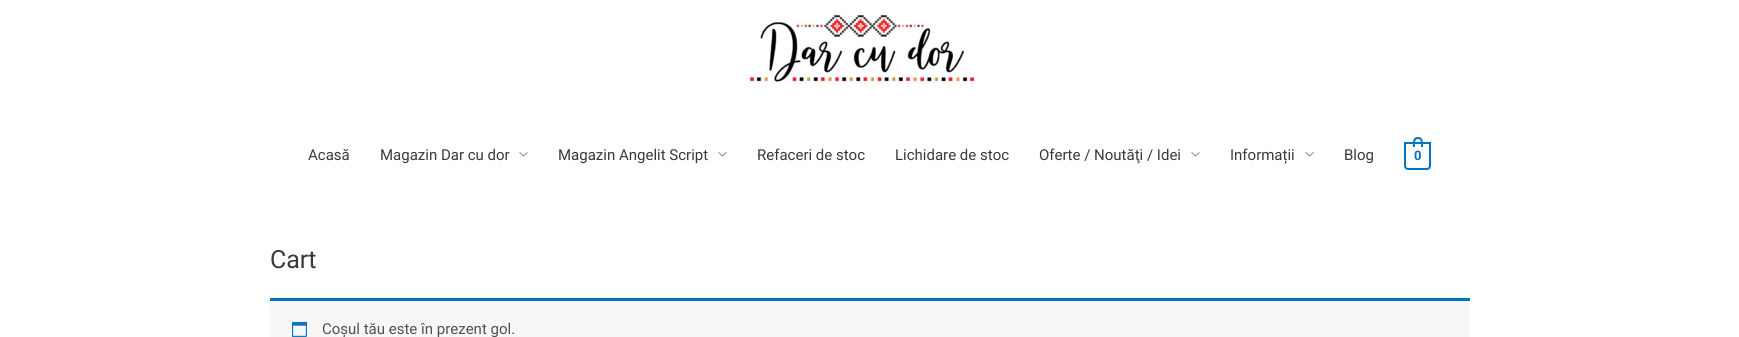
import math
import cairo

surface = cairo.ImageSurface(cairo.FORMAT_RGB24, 1739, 337)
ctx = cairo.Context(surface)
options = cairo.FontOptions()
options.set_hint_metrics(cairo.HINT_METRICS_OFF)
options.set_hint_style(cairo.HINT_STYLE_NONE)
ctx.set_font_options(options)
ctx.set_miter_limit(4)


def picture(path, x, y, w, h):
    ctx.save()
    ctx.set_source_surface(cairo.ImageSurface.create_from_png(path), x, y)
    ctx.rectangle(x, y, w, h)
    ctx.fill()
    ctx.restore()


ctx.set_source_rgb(1, 1, 1)
ctx.paint()
picture("img1.png", 750, 15, 224, 67)
ctx.select_font_face("Roboto")
ctx.set_font_size(15)
ctx.set_source_rgb(0.227, 0.227, 0.227)
ctx.move_to(308, 160)
ctx.show_text("Acasă")
ctx.move_to(380, 160)
ctx.show_text("Magazin Dar cu dor")
picture("img2.png", 519, 152, 9, 5)
ctx.move_to(558, 160)
ctx.show_text("Magazin Angelit Script")
picture("img2.png", 718, 152, 9, 5)
ctx.move_to(757, 160)
ctx.show_text("Refaceri de stoc")
ctx.move_to(895, 160)
ctx.show_text("Lichidare de stoc")
ctx.move_to(1039, 160)
ctx.show_text("Oferte / Noutăţi / Idei")
picture("img2.png", 1191, 152, 9, 5)
ctx.move_to(1230, 160)
ctx.show_text("Informații")
picture("img2.png", 1305, 152, 9, 5)
ctx.move_to(1344, 160)
ctx.show_text("Blog")
ctx.new_path()
ctx.move_to(1405, 143)
ctx.line_to(1430, 143)
ctx.line_to(1430, 166)
ctx.curve_to(1430, 167.5, 1428.5, 169, 1427, 169)
ctx.line_to(1408, 169)
ctx.curve_to(1406.5, 169, 1405, 167.5, 1405, 166)
ctx.close_path()
ctx.set_source_rgb(0.008, 0.455, 0.745)
ctx.stroke()
ctx.set_fill_rule(cairo.FILL_RULE_EVEN_ODD)
ctx.new_path()
ctx.move_to(1418, 137)
ctx.curve_to(1423.5, 137, 1423, 143, 1423, 147)
ctx.line_to(1413, 147)
ctx.curve_to(1413, 143, 1412, 137, 1418, 137)
ctx.close_path()
ctx.move_to(1418, 139)
ctx.curve_to(1422, 139, 1421, 144.5, 1421, 147)
ctx.line_to(1415, 147)
ctx.curve_to(1415, 144.5, 1414, 139, 1418, 139)
ctx.close_path()
ctx.fill()
ctx.select_font_face("Roboto", cairo.FONT_SLANT_NORMAL, cairo.FONT_WEIGHT_BOLD)
ctx.set_font_size(13)
ctx.move_to(1414, 160)
ctx.show_text("0")
ctx.select_font_face("Roboto")
ctx.set_font_size(25)
ctx.set_source_rgb(0.227, 0.227, 0.227)
ctx.move_to(270, 268)
ctx.show_text("Cart")
ctx.set_source_rgb(0.969, 0.965, 0.969)
ctx.rectangle(270, 301, 1200, 36)
ctx.fill()
ctx.set_source_rgb(0.008, 0.455, 0.745)
ctx.rectangle(270, 298, 1200, 3)
ctx.fill()
picture("img3.png", 292, 321, 15, 16)
ctx.set_font_size(15)
ctx.set_source_rgb(0.318, 0.318, 0.318)
ctx.move_to(322, 334)
ctx.show_text("Coșul tău este în prezent gol.")
surface.write_to_png("page.png")
